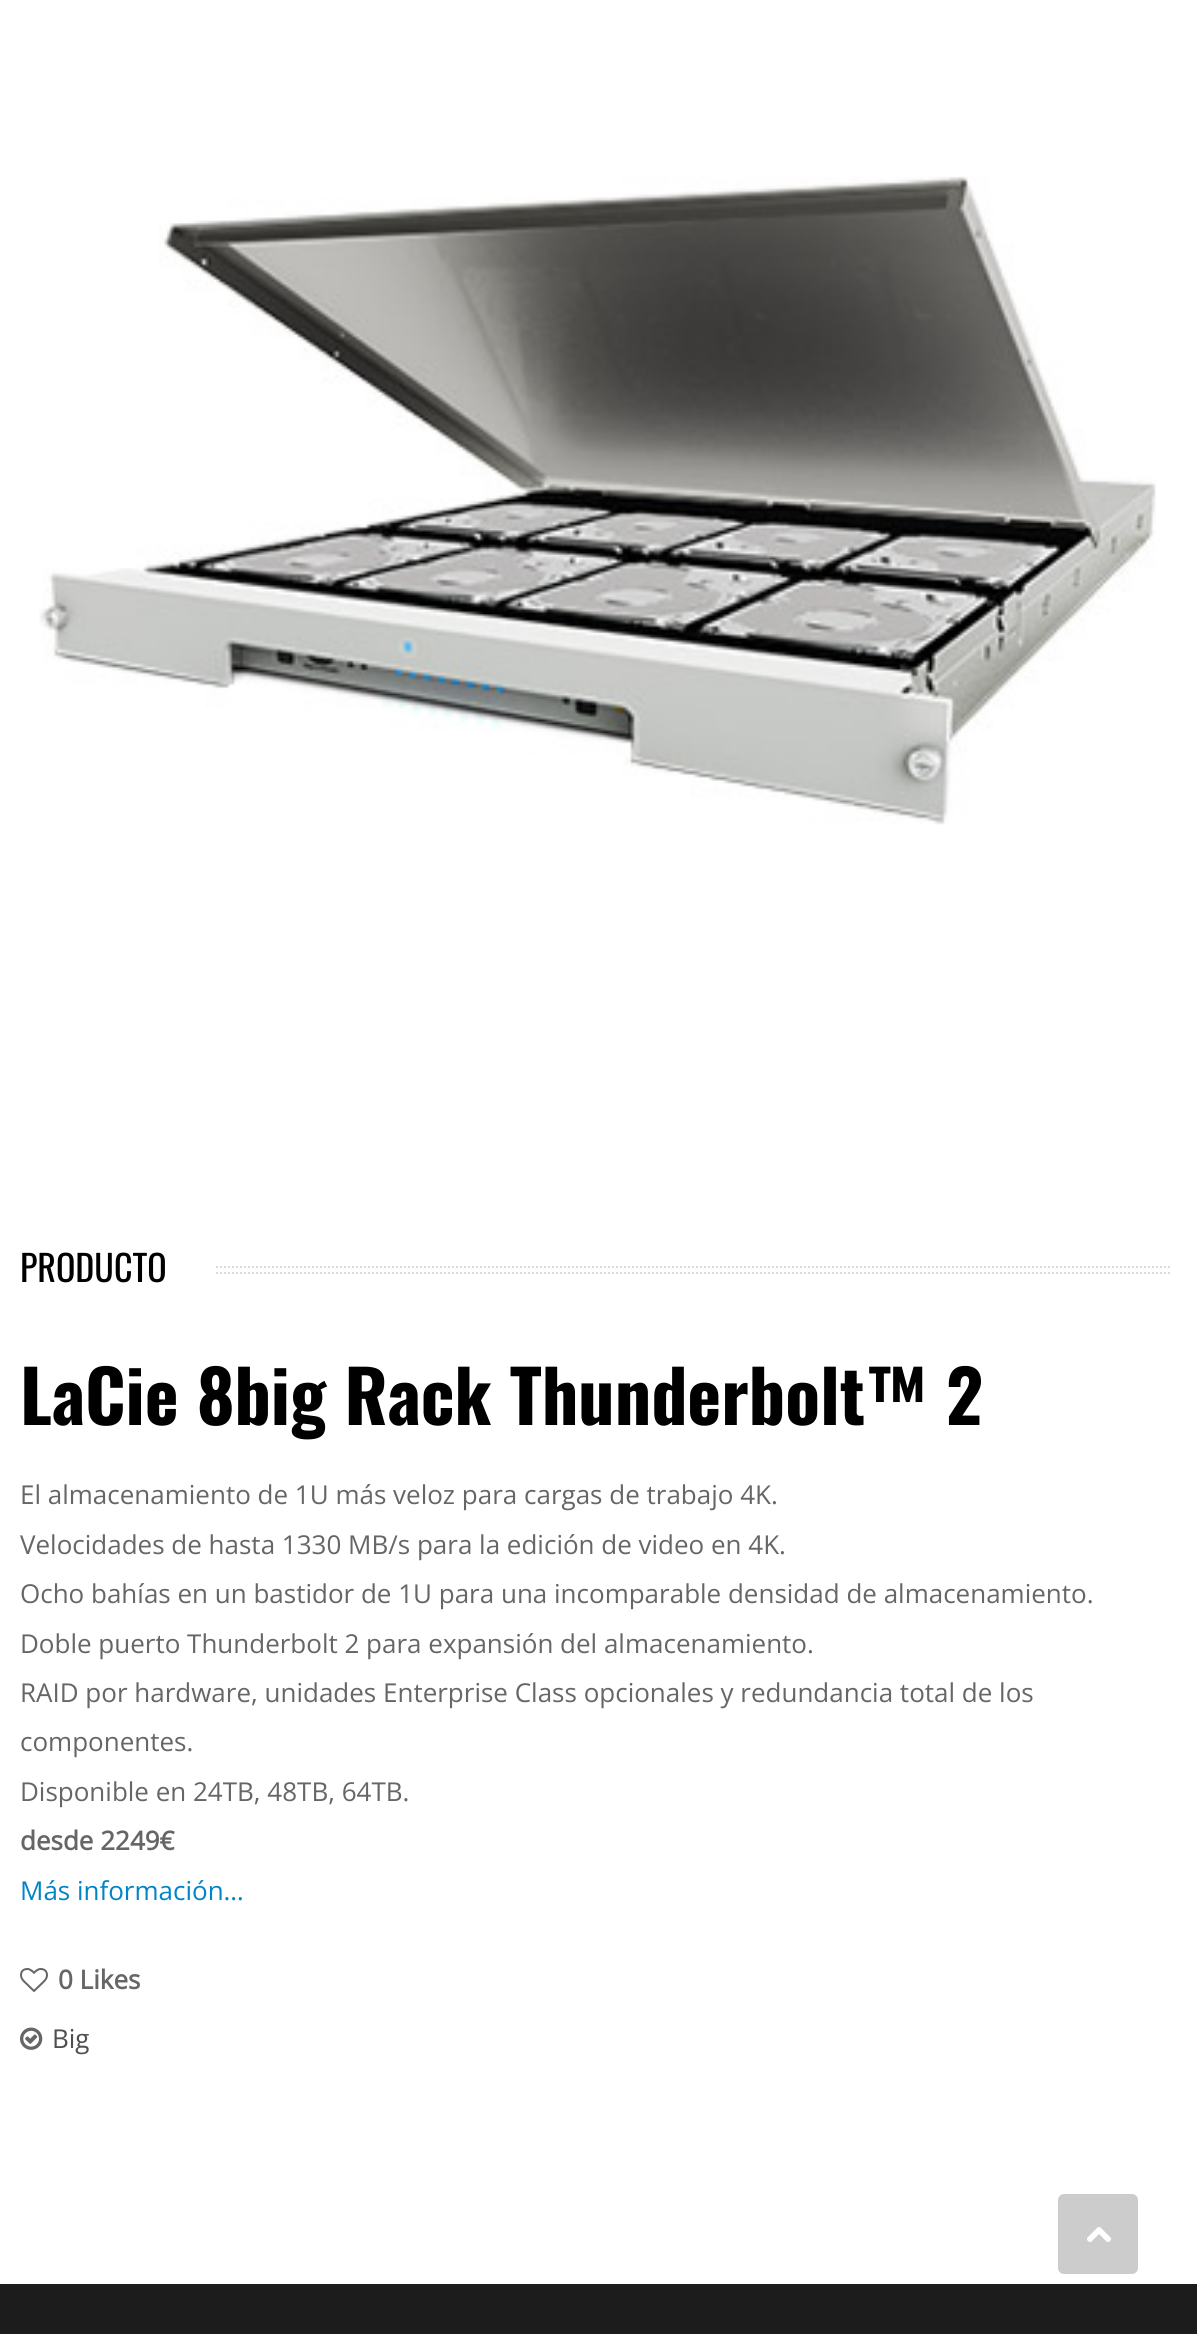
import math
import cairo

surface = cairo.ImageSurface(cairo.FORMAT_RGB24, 1197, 2334)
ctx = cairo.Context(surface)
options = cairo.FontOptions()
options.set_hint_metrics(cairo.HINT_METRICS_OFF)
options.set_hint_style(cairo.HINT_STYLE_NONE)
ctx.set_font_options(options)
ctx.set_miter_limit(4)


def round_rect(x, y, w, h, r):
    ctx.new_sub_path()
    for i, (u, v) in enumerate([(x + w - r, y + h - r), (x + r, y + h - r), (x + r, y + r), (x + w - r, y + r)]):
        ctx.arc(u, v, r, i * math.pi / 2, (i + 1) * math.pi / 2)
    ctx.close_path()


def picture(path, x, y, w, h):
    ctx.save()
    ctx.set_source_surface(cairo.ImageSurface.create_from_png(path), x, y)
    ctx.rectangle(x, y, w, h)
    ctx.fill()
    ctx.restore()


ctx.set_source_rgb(1, 1, 1)
ctx.paint()
picture("img1.png", 39, 176, 1117, 649)
ctx.select_font_face("Oswald")
ctx.set_font_size(36)
ctx.set_source_rgb(0, 0, 0)
ctx.move_to(20, 1282)
ctx.show_text("PRODUCTO")
ctx.new_path()
ctx.move_to(216, 1267)
ctx.line_to(1172, 1267)
ctx.set_source_rgb(0.859, 0.859, 0.859)
ctx.set_dash([2, 2])
ctx.stroke()
ctx.new_path()
ctx.move_to(216, 1273)
ctx.line_to(1172, 1273)
ctx.stroke()
ctx.select_font_face("Oswald", cairo.FONT_SLANT_NORMAL, cairo.FONT_WEIGHT_BOLD)
ctx.set_font_size(72)
ctx.set_source_rgb(0, 0, 0)
ctx.move_to(20, 1425)
ctx.show_text("LaCie 8big Rack Thunderbolt™ 2")
ctx.select_font_face("Open Sans")
ctx.set_font_size(26)
ctx.set_source_rgb(0.4, 0.4, 0.4)
ctx.move_to(20, 1504)
ctx.show_text("El almacenamiento de 1U más veloz para cargas de trabajo 4K.")
ctx.move_to(20, 1554)
ctx.show_text("Velocidades de hasta 1330 MB/s para la edición de video en 4K.")
ctx.move_to(20, 1603)
ctx.show_text("Ocho bahías en un bastidor de 1U para una incomparable densidad de almacenamiento.")
ctx.move_to(20, 1653)
ctx.show_text("Doble puerto Thunderbolt 2 para expansión del almacenamiento.")
ctx.move_to(20, 1702)
ctx.show_text("RAID por hardware, unidades Enterprise Class opcionales y redundancia total de los")
ctx.move_to(20, 1751)
ctx.show_text("componentes.")
ctx.move_to(20, 1801)
ctx.show_text("Disponible en 24TB, 48TB, 64TB.")
ctx.select_font_face("Open Sans", cairo.FONT_SLANT_NORMAL, cairo.FONT_WEIGHT_BOLD)
ctx.move_to(20, 1850)
ctx.show_text("desde 2249€")
ctx.select_font_face("Open Sans")
ctx.set_source_rgb(0, 0.518, 0.784)
ctx.move_to(20, 1900)
ctx.show_text("Más información…")
picture("img2.png", 20, 1968, 28, 24)
ctx.select_font_face("Open Sans", cairo.FONT_SLANT_NORMAL, cairo.FONT_WEIGHT_BOLD)
ctx.set_source_rgb(0.4, 0.4, 0.4)
ctx.move_to(58, 1989)
ctx.show_text("0 Likes")
picture("img3.png", 20, 2027, 23, 23)
ctx.select_font_face("Open Sans")
ctx.set_source_rgb(0.31, 0.31, 0.31)
ctx.move_to(52, 2048)
ctx.show_text("Big")
ctx.set_source_rgb(0.11, 0.11, 0.11)
ctx.rectangle(0, 2284, 1197, 50)
ctx.fill()
ctx.set_source_rgb(0.8, 0.8, 0.8)
round_rect(1058, 2194, 80, 80, 6)
ctx.fill()
picture("img4.png", 1087, 2227, 24, 15)
surface.write_to_png("page.png")
